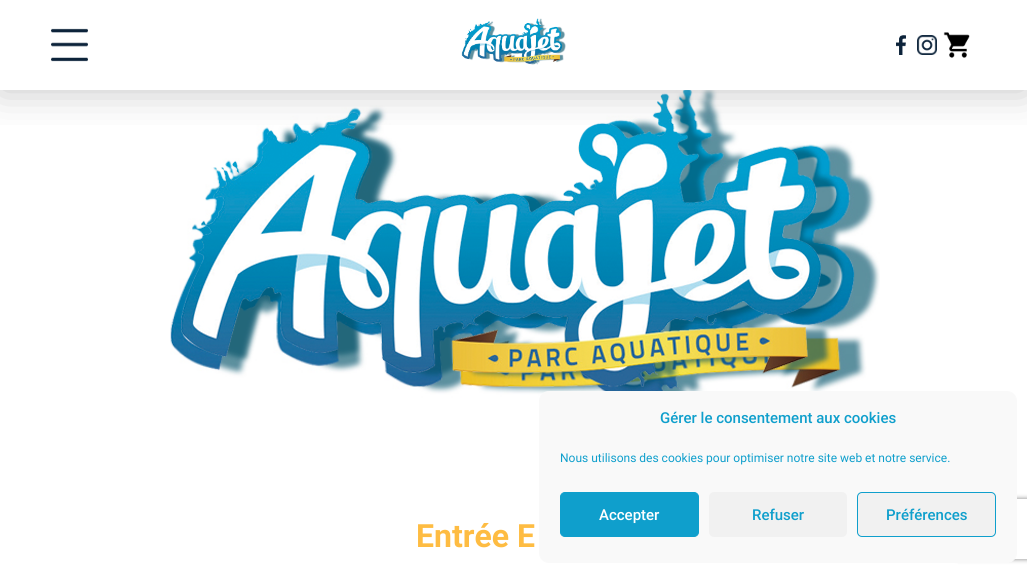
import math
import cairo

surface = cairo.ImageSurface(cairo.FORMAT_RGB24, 1027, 573)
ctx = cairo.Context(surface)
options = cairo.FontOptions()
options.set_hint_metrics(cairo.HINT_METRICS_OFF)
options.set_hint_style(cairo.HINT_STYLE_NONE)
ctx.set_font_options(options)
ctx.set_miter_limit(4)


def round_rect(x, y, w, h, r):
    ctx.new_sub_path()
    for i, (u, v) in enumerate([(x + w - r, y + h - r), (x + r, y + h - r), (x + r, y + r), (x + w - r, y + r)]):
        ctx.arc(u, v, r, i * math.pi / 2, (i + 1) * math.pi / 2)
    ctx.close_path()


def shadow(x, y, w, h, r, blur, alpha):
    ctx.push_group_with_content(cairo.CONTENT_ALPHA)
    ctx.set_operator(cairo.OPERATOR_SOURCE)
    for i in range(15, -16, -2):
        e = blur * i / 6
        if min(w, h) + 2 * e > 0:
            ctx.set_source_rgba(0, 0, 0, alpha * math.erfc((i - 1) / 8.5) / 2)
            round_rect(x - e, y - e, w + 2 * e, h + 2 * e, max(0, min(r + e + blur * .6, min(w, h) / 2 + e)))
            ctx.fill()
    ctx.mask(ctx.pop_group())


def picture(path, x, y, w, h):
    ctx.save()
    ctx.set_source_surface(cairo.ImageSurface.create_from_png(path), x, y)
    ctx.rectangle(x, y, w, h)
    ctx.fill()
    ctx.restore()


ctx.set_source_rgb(1, 1, 1)
ctx.paint()
picture("img6.png", 170, 90, 710, 311)
picture("img7.png", 181, 92, 664, 299)
ctx.save()
ctx.rectangle(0, 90, 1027, 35)
ctx.clip()
ctx.set_source_rgb(0.525, 0.525, 0.537)
shadow(0, 0, 1027, 90, 0, 20, 0.5)
ctx.restore()
picture("img1.png", 51, 28, 37, 34)
picture("img2.png", 461, 18, 105, 47)
picture("img3.png", 896, 35, 10, 20)
picture("img4.png", 917, 35, 20, 20)
picture("img5.png", 943, 32, 27, 26)
ctx.select_font_face("Roboto", cairo.FONT_SLANT_NORMAL, cairo.FONT_WEIGHT_BOLD)
ctx.set_font_size(32)
ctx.set_source_rgb(0.996, 0.737, 0.259)
ctx.move_to(416, 547)
ctx.show_text("Entrée E")
ctx.save()
ctx.set_fill_rule(cairo.FILL_RULE_EVEN_ODD)
ctx.new_path()
ctx.move_to(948, 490)
ctx.line_to(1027, 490)
ctx.line_to(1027, 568)
ctx.line_to(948, 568)
ctx.close_path()
ctx.move_to(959, 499)
ctx.line_to(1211, 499)
ctx.curve_to(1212, 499, 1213, 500, 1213, 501)
ctx.line_to(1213, 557)
ctx.curve_to(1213, 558, 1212, 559, 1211, 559)
ctx.line_to(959, 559)
ctx.curve_to(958, 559, 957, 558, 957, 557)
ctx.line_to(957, 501)
ctx.curve_to(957, 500, 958, 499, 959, 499)
ctx.close_path()
ctx.clip()
ctx.set_source_rgb(0.502, 0.502, 0.502)
shadow(957, 499, 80, 60, 2, 2.5, 1)
ctx.restore()
ctx.set_source_rgb(0.976, 0.976, 0.976)
round_rect(539.5, 391.5, 477, 171, 9.5)
ctx.fill_preserve()
ctx.set_line_width(1)
ctx.stroke()
ctx.select_font_face("Roboto Medium")
ctx.set_font_size(15)
ctx.set_source_rgb(0.059, 0.624, 0.8)
ctx.move_to(660, 423)
ctx.show_text("Gérer le consentement aux cookies")
ctx.select_font_face("Roboto")
ctx.set_font_size(12)
ctx.move_to(560, 462)
ctx.show_text("Nous utilisons des cookies pour optimiser notre site web et notre service.")
round_rect(560.5, 492.5, 138, 44, 4.5)
ctx.fill_preserve()
ctx.stroke()
ctx.select_font_face("Roboto Medium")
ctx.set_font_size(15)
ctx.set_source_rgb(1, 1, 1)
ctx.move_to(599, 520)
ctx.show_text("Accepter")
ctx.set_source_rgb(0.945, 0.945, 0.945)
round_rect(709, 492, 138, 45, 5)
ctx.fill()
ctx.set_source_rgb(0.059, 0.624, 0.8)
ctx.move_to(752, 520)
ctx.show_text("Refuser")
ctx.set_source_rgb(0.945, 0.945, 0.945)
round_rect(857.5, 492.5, 138, 44, 4.5)
ctx.fill_preserve()
ctx.set_source_rgb(0.059, 0.624, 0.8)
ctx.stroke()
ctx.move_to(886, 520)
ctx.show_text("Préférences")
surface.write_to_png("page.png")
